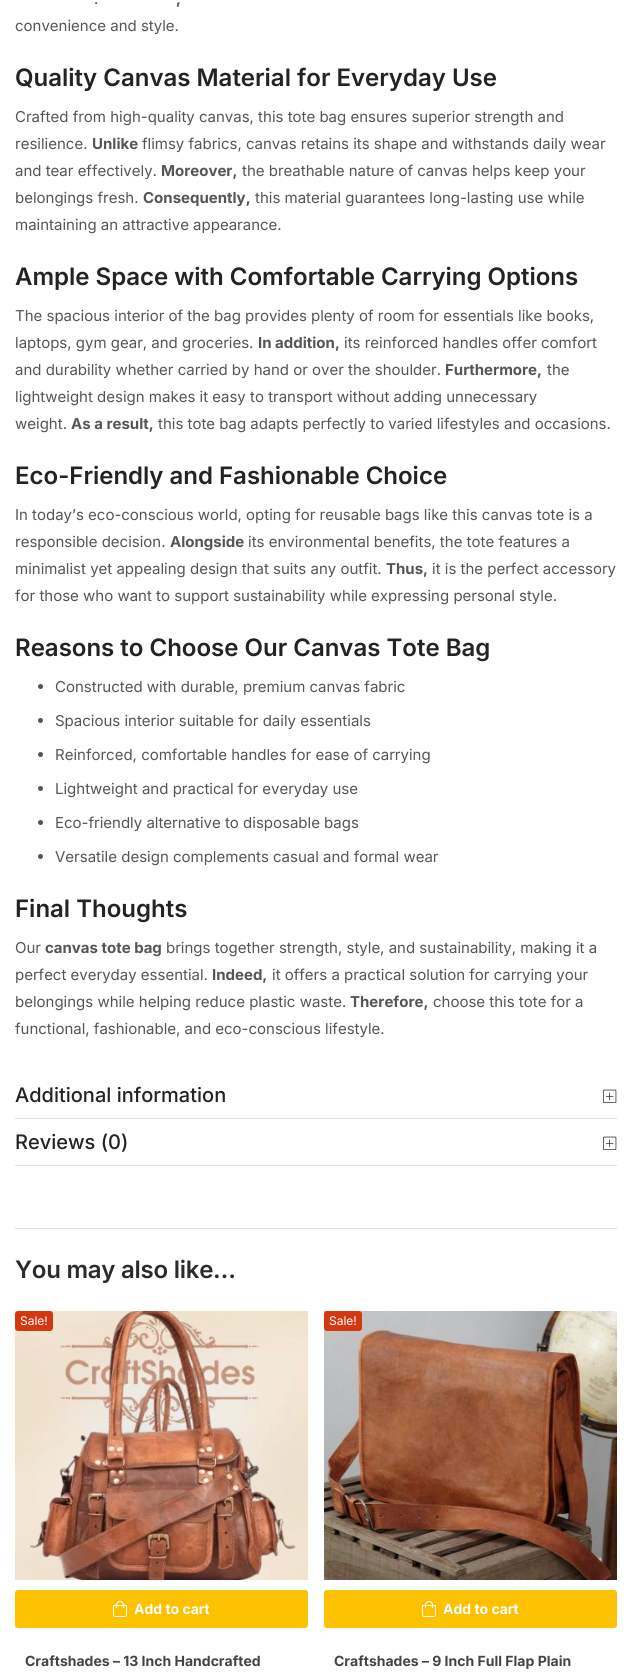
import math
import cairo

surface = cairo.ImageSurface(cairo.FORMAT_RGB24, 632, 1678)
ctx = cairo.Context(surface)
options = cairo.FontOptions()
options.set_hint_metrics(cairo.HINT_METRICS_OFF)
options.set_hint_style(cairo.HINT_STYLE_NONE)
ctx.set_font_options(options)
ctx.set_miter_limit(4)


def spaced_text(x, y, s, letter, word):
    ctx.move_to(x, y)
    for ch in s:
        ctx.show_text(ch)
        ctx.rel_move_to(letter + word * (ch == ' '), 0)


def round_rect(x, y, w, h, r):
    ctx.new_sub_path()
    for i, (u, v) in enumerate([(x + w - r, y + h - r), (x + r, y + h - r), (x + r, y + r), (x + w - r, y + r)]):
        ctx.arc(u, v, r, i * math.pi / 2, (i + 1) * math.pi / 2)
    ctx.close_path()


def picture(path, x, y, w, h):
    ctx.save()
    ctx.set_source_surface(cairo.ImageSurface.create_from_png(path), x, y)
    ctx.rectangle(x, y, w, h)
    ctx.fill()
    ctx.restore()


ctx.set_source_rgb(1, 1, 1)
ctx.paint()
ctx.select_font_face("Inter")
ctx.set_font_size(15)
ctx.set_source_rgb(0.333, 0.333, 0.333)
ctx.move_to(94, 4)
ctx.show_text(".")
ctx.select_font_face("Inter", cairo.FONT_SLANT_NORMAL, cairo.FONT_WEIGHT_BOLD)
ctx.move_to(176, 4)
ctx.show_text(",")
ctx.select_font_face("Inter")
ctx.move_to(15, 31)
ctx.show_text("convenience and style.")
ctx.select_font_face("Inter SemiBold")
ctx.set_font_size(24)
ctx.set_source_rgb(0.137, 0.137, 0.137)
ctx.move_to(15, 86)
ctx.show_text("Quality Canvas Material for Everyday Use")
ctx.select_font_face("Inter")
ctx.set_font_size(15)
ctx.set_source_rgb(0.333, 0.333, 0.333)
ctx.move_to(15, 122)
ctx.show_text("Crafted from high-quality canvas, this tote bag ensures superior strength and")
ctx.move_to(15, 149)
ctx.show_text("resilience.")
ctx.select_font_face("Inter", cairo.FONT_SLANT_NORMAL, cairo.FONT_WEIGHT_BOLD)
ctx.move_to(92, 149)
ctx.show_text("Unlike")
ctx.select_font_face("Inter")
ctx.move_to(142, 149)
ctx.show_text("flimsy fabrics, canvas retains its shape and withstands daily wear")
ctx.move_to(15, 176)
ctx.show_text("and tear effectively.")
ctx.select_font_face("Inter", cairo.FONT_SLANT_NORMAL, cairo.FONT_WEIGHT_BOLD)
ctx.move_to(161, 176)
ctx.show_text("Moreover,")
ctx.select_font_face("Inter")
ctx.move_to(242, 176)
ctx.show_text("the breathable nature of canvas helps keep your")
ctx.move_to(15, 203)
ctx.show_text("belongings fresh.")
ctx.select_font_face("Inter", cairo.FONT_SLANT_NORMAL, cairo.FONT_WEIGHT_BOLD)
ctx.move_to(143, 203)
ctx.show_text("Consequently,")
ctx.select_font_face("Inter")
ctx.move_to(255, 203)
ctx.show_text("this material guarantees long-lasting use while")
ctx.move_to(15, 230)
ctx.show_text("maintaining an attractive appearance.")
ctx.select_font_face("Inter SemiBold")
ctx.set_font_size(24)
ctx.set_source_rgb(0.137, 0.137, 0.137)
ctx.move_to(15, 285)
ctx.show_text("Ample Space with Comfortable Carrying Options")
ctx.select_font_face("Inter")
ctx.set_font_size(15)
ctx.set_source_rgb(0.333, 0.333, 0.333)
ctx.move_to(15, 321)
ctx.show_text("The spacious interior of the bag provides plenty of room for essentials like books,")
ctx.move_to(15, 348)
ctx.show_text("laptops, gym gear, and groceries.")
ctx.select_font_face("Inter", cairo.FONT_SLANT_NORMAL, cairo.FONT_WEIGHT_BOLD)
ctx.move_to(258, 348)
ctx.show_text("In addition,")
ctx.select_font_face("Inter")
ctx.move_to(344, 348)
ctx.show_text("its reinforced handles offer comfort")
ctx.move_to(15, 375)
ctx.show_text("and durability whether carried by hand or over the shoulder.")
ctx.select_font_face("Inter", cairo.FONT_SLANT_NORMAL, cairo.FONT_WEIGHT_BOLD)
ctx.move_to(445, 375)
ctx.show_text("Furthermore,")
ctx.select_font_face("Inter")
ctx.move_to(547, 375)
ctx.show_text("the")
ctx.move_to(15, 402)
ctx.show_text("lightweight design makes it easy to transport without adding unnecessary")
ctx.move_to(15, 429)
ctx.show_text("weight.")
ctx.select_font_face("Inter", cairo.FONT_SLANT_NORMAL, cairo.FONT_WEIGHT_BOLD)
ctx.move_to(71, 429)
ctx.show_text("As a result,")
ctx.select_font_face("Inter")
ctx.move_to(158, 429)
ctx.show_text("this tote bag adapts perfectly to varied lifestyles and occasions.")
ctx.select_font_face("Inter SemiBold")
ctx.set_font_size(24)
ctx.set_source_rgb(0.137, 0.137, 0.137)
ctx.move_to(15, 484)
ctx.show_text("Eco-Friendly and Fashionable Choice")
ctx.select_font_face("Inter")
ctx.set_font_size(15)
ctx.set_source_rgb(0.333, 0.333, 0.333)
ctx.move_to(15, 520)
ctx.show_text("In today’s eco-conscious world, opting for reusable bags like this canvas tote is a")
ctx.move_to(15, 547)
ctx.show_text("responsible decision.")
ctx.select_font_face("Inter", cairo.FONT_SLANT_NORMAL, cairo.FONT_WEIGHT_BOLD)
ctx.move_to(170, 547)
ctx.show_text("Alongside")
ctx.select_font_face("Inter")
ctx.move_to(248, 547)
ctx.show_text("its environmental benefits, the tote features a")
ctx.move_to(15, 574)
ctx.show_text("minimalist yet appealing design that suits any outfit.")
ctx.select_font_face("Inter", cairo.FONT_SLANT_NORMAL, cairo.FONT_WEIGHT_BOLD)
ctx.move_to(386, 574)
ctx.show_text("Thus,")
ctx.select_font_face("Inter")
ctx.move_to(432, 574)
ctx.show_text("it is the perfect accessory")
ctx.move_to(15, 601)
ctx.show_text("for those who want to support sustainability while expressing personal style.")
ctx.select_font_face("Inter SemiBold")
ctx.set_font_size(24)
ctx.set_source_rgb(0.137, 0.137, 0.137)
ctx.move_to(15, 656)
ctx.show_text("Reasons to Choose Our Canvas Tote Bag")
ctx.set_source_rgb(0.333, 0.333, 0.333)
ctx.new_path()
ctx.arc(40.5, 686.5, 2.5, 0, 2 * math.pi)
ctx.fill()
ctx.select_font_face("Inter")
ctx.set_font_size(15)
ctx.move_to(55, 692)
ctx.show_text("Constructed with durable, premium canvas fabric")
ctx.new_path()
ctx.arc(40.5, 720.5, 2.5, 0, 2 * math.pi)
ctx.fill()
ctx.move_to(55, 726)
ctx.show_text("Spacious interior suitable for daily essentials")
ctx.new_path()
ctx.arc(40.5, 754.5, 2.5, 0, 2 * math.pi)
ctx.fill()
ctx.move_to(55, 760)
ctx.show_text("Reinforced, comfortable handles for ease of carrying")
ctx.new_path()
ctx.arc(40.5, 788.5, 2.5, 0, 2 * math.pi)
ctx.fill()
ctx.move_to(55, 794)
ctx.show_text("Lightweight and practical for everyday use")
ctx.new_path()
ctx.arc(40.5, 822.5, 2.5, 0, 2 * math.pi)
ctx.fill()
ctx.move_to(55, 828)
ctx.show_text("Eco-friendly alternative to disposable bags")
ctx.new_path()
ctx.arc(40.5, 856.5, 2.5, 0, 2 * math.pi)
ctx.fill()
ctx.move_to(55, 862)
ctx.show_text("Versatile design complements casual and formal wear")
ctx.select_font_face("Inter SemiBold")
ctx.set_font_size(24)
ctx.set_source_rgb(0.137, 0.137, 0.137)
ctx.move_to(15, 917)
ctx.show_text("Final Thoughts")
ctx.select_font_face("Inter")
ctx.set_font_size(15)
ctx.set_source_rgb(0.333, 0.333, 0.333)
ctx.move_to(15, 953)
ctx.show_text("Our")
ctx.select_font_face("Inter", cairo.FONT_SLANT_NORMAL, cairo.FONT_WEIGHT_BOLD)
ctx.move_to(45, 953)
ctx.show_text("canvas tote bag")
ctx.select_font_face("Inter")
ctx.move_to(166, 953)
ctx.show_text("brings together strength, style, and sustainability, making it a")
ctx.move_to(15, 980)
ctx.show_text("perfect everyday essential.")
ctx.select_font_face("Inter", cairo.FONT_SLANT_NORMAL, cairo.FONT_WEIGHT_BOLD)
ctx.move_to(212, 980)
ctx.show_text("Indeed,")
ctx.select_font_face("Inter")
ctx.move_to(272, 980)
ctx.show_text("it offers a practical solution for carrying your")
ctx.move_to(15, 1007)
ctx.show_text("belongings while helping reduce plastic waste.")
ctx.select_font_face("Inter", cairo.FONT_SLANT_NORMAL, cairo.FONT_WEIGHT_BOLD)
ctx.move_to(350, 1007)
ctx.show_text("Therefore,")
ctx.select_font_face("Inter")
ctx.move_to(433, 1007)
ctx.show_text("choose this tote for a")
ctx.move_to(15, 1034)
ctx.show_text("functional, fashionable, and eco-conscious lifestyle.")
ctx.set_source_rgb(0.878, 0.878, 0.878)
ctx.rectangle(15, 1118, 602, 1)
ctx.fill()
ctx.select_font_face("Inter Medium")
ctx.set_font_size(20)
ctx.set_source_rgb(0.137, 0.137, 0.137)
ctx.move_to(15, 1102)
ctx.show_text("Additional information")
picture("img1.png", 603, 1089, 14, 14)
ctx.set_source_rgb(0.878, 0.878, 0.878)
ctx.rectangle(15, 1165, 602, 1)
ctx.fill()
ctx.set_source_rgb(0.137, 0.137, 0.137)
ctx.move_to(15, 1149)
ctx.show_text("Reviews (0)")
picture("img1.png", 603, 1136, 14, 14)
ctx.set_source_rgb(0.867, 0.867, 0.867)
ctx.rectangle(15, 1228, 602, 1)
ctx.fill()
ctx.select_font_face("Inter SemiBold")
ctx.set_font_size(24)
ctx.set_source_rgb(0.169, 0.169, 0.169)
spaced_text(15, 1278, "You may also like…", -0.25, 0)
picture("img2.png", 15, 1311, 293, 269)
picture("img4.png", 59, 1311, 234, 269)
picture("img3.png", 30, 1311, 266, 269)
ctx.set_source_rgb(0.831, 0.22, 0.067)
round_rect(15, 1311, 38, 20, 3)
ctx.fill()
ctx.select_font_face("Inter")
ctx.set_font_size(12)
ctx.set_source_rgb(1, 1, 1)
ctx.move_to(20, 1325)
ctx.show_text("Sale!")
ctx.set_source_rgb(0.988, 0.757, 0)
round_rect(15, 1590, 293, 38, 3)
ctx.fill()
picture("img5.png", 113, 1601, 14, 16)
ctx.select_font_face("Inter", cairo.FONT_SLANT_NORMAL, cairo.FONT_WEIGHT_BOLD)
ctx.set_font_size(14)
ctx.set_source_rgb(1, 1, 1)
ctx.move_to(134, 1614)
ctx.show_text("Add to cart")
ctx.set_source_rgb(0.267, 0.267, 0.267)
ctx.move_to(25, 1666)
ctx.show_text("Craftshades – 13 Inch Handcrafted")
picture("img6.png", 324, 1311, 293, 269)
ctx.set_source_rgb(0.831, 0.22, 0.067)
round_rect(324, 1311, 38, 20, 3)
ctx.fill()
ctx.select_font_face("Inter")
ctx.set_font_size(12)
ctx.set_source_rgb(1, 1, 1)
ctx.move_to(329, 1325)
ctx.show_text("Sale!")
ctx.set_source_rgb(0.988, 0.757, 0)
round_rect(324, 1590, 293, 38, 3)
ctx.fill()
picture("img5.png", 422, 1601, 14, 16)
ctx.select_font_face("Inter", cairo.FONT_SLANT_NORMAL, cairo.FONT_WEIGHT_BOLD)
ctx.set_font_size(14)
ctx.set_source_rgb(1, 1, 1)
ctx.move_to(443, 1614)
ctx.show_text("Add to cart")
ctx.set_source_rgb(0.267, 0.267, 0.267)
ctx.move_to(334, 1666)
ctx.show_text("Craftshades – 9 Inch Full Flap Plain")
surface.write_to_png("page.png")
